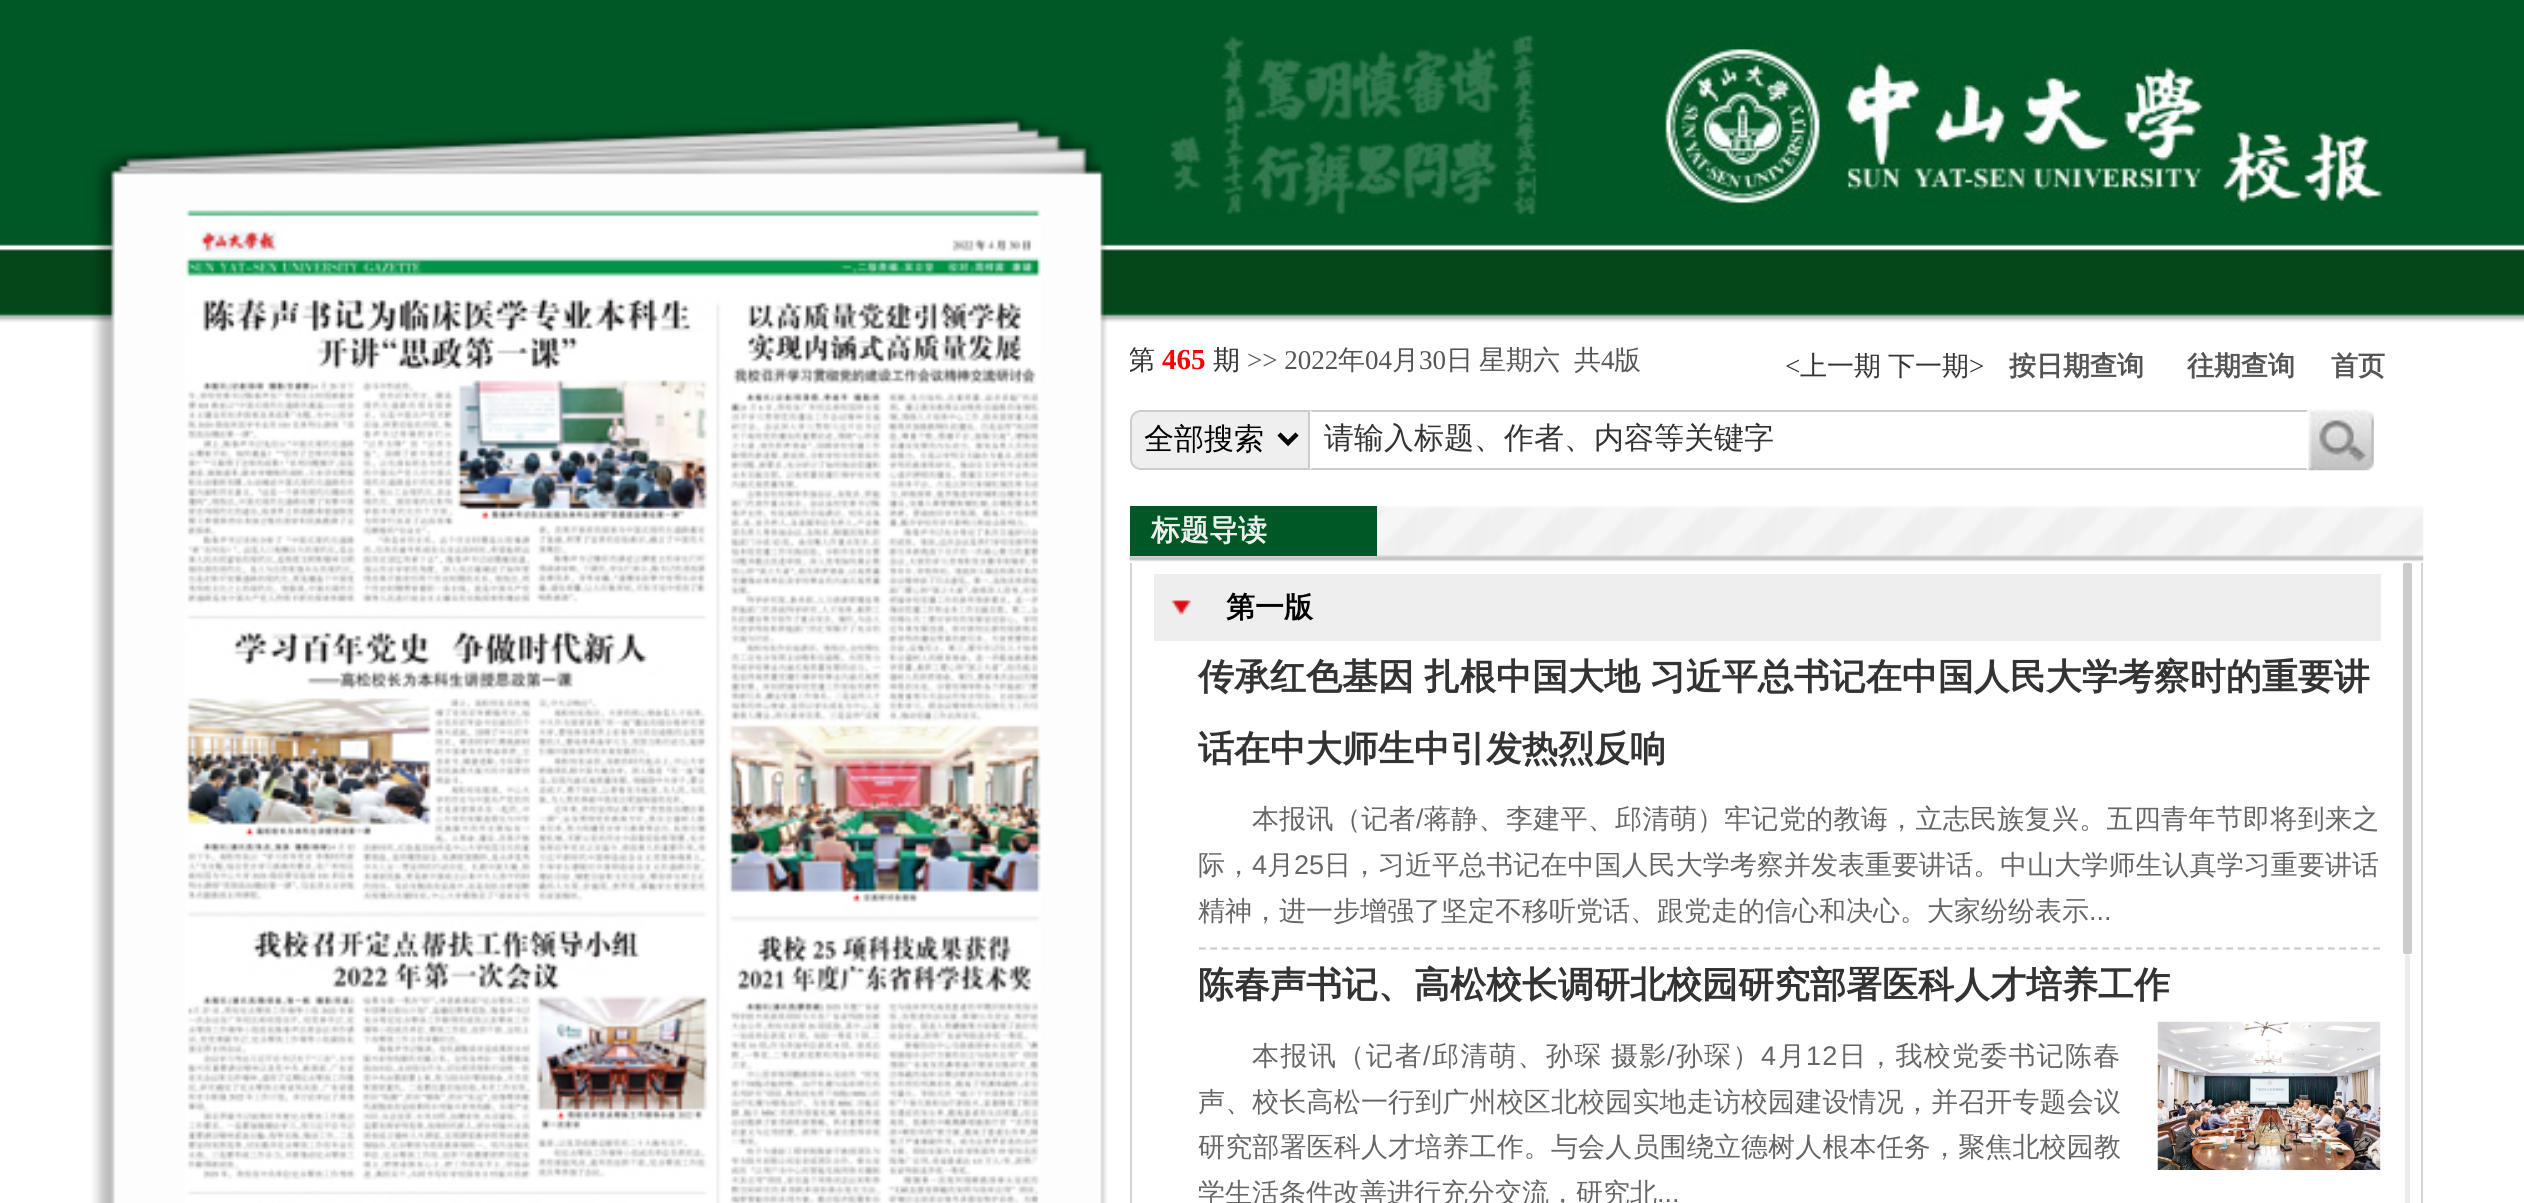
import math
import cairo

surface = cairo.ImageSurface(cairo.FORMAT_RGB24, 2524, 1203)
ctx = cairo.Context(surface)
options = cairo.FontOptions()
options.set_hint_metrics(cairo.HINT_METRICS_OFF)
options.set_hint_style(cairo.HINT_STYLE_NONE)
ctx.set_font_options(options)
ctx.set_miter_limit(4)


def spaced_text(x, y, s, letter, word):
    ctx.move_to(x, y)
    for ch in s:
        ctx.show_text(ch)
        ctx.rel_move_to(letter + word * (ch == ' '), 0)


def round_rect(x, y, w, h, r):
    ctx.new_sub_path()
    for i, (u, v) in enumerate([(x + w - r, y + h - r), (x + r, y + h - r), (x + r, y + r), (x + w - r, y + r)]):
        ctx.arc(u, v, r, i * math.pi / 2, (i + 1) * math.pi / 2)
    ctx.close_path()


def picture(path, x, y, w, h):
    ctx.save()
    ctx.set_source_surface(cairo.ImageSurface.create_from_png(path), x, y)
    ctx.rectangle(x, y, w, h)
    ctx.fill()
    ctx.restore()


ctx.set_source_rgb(1, 1, 1)
ctx.paint()
picture("img1.png", 0, 0, 2524, 322)
picture("img2.png", 91, 114, 1016, 1089)
picture("img3.png", 185, 209, 856, 994)
ctx.save()
ctx.rectangle(1130, 315, 630, 90)
ctx.clip()
ctx.select_font_face("WenQuanYi Zen Hei Medium")
ctx.set_font_size(27)
ctx.set_source_rgb(0.2, 0.2, 0.2)
ctx.move_to(1128, 369)
ctx.show_text("第")
ctx.restore()
ctx.select_font_face("Liberation Serif", cairo.FONT_SLANT_NORMAL, cairo.FONT_WEIGHT_BOLD)
ctx.set_font_size(29)
ctx.set_source_rgb(1, 0, 0)
ctx.move_to(1162, 369)
ctx.show_text("465")
ctx.select_font_face("WenQuanYi Zen Hei Medium")
ctx.set_font_size(27)
ctx.set_source_rgb(0.2, 0.2, 0.2)
ctx.move_to(1213, 369)
ctx.show_text("期")
ctx.select_font_face("Liberation Serif")
ctx.set_source_rgb(0.333, 0.333, 0.333)
ctx.move_to(1247, 369)
ctx.show_text(">> 2022")
ctx.select_font_face("WenQuanYi Zen Hei Medium")
ctx.move_to(1338, 369)
ctx.show_text("年")
ctx.select_font_face("Liberation Serif")
ctx.move_to(1365, 369)
ctx.show_text("04")
ctx.select_font_face("WenQuanYi Zen Hei Medium")
ctx.move_to(1392, 369)
ctx.show_text("月")
ctx.select_font_face("Liberation Serif")
ctx.move_to(1419, 369)
ctx.show_text("30")
ctx.select_font_face("WenQuanYi Zen Hei Medium")
ctx.move_to(1446, 369)
ctx.show_text("日")
ctx.move_to(1479, 369)
ctx.show_text("星期六")
ctx.move_to(1574, 369)
ctx.show_text("共")
ctx.select_font_face("Liberation Serif")
ctx.move_to(1601, 369)
ctx.show_text("4")
ctx.select_font_face("WenQuanYi Zen Hei Medium")
ctx.move_to(1614, 369)
ctx.show_text("版")
ctx.select_font_face("Liberation Serif")
ctx.set_source_rgb(0.2, 0.2, 0.2)
ctx.move_to(1785, 375)
ctx.show_text("<")
ctx.select_font_face("WenQuanYi Zen Hei Medium")
ctx.move_to(1800, 375)
ctx.show_text("上一期")
ctx.move_to(1888, 375)
ctx.show_text("下一期")
ctx.select_font_face("Liberation Serif")
ctx.move_to(1969, 375)
ctx.show_text(">")
ctx.select_font_face("WenQuanYi Zen Hei", cairo.FONT_SLANT_NORMAL, cairo.FONT_WEIGHT_BOLD)
ctx.set_source_rgb(0.333, 0.333, 0.333)
ctx.move_to(2009, 375)
ctx.show_text("按日期查询")
ctx.move_to(2187, 375)
ctx.show_text("往期查询")
ctx.move_to(2331, 375)
ctx.show_text("首页")
ctx.set_source_rgb(0.937, 0.937, 0.937)
ctx.new_path()
ctx.move_to(1141, 411)
ctx.line_to(1309, 411)
ctx.line_to(1309, 469)
ctx.line_to(1141, 469)
ctx.curve_to(1135.5, 469, 1131, 464.5, 1131, 459)
ctx.line_to(1131, 421)
ctx.curve_to(1131, 415.5, 1135.5, 411, 1141, 411)
ctx.close_path()
ctx.fill_preserve()
ctx.set_source_rgb(0.8, 0.8, 0.8)
ctx.stroke()
ctx.new_path()
ctx.move_to(1279, 434)
ctx.line_to(1288, 443)
ctx.line_to(1297, 434)
ctx.set_source_rgb(0, 0, 0)
ctx.set_line_width(4.5)
ctx.stroke()
ctx.select_font_face("WenQuanYi Zen Hei Medium")
ctx.set_font_size(30)
ctx.move_to(1144, 449)
ctx.show_text("全部搜索")
ctx.set_source_rgb(0.8, 0.8, 0.8)
ctx.new_path()
ctx.move_to(1310, 410)
ctx.line_to(2308, 410)
ctx.line_to(2306, 412)
ctx.line_to(1312, 412)
ctx.close_path()
ctx.fill()
ctx.new_path()
ctx.move_to(2308, 470)
ctx.line_to(1310, 470)
ctx.line_to(1312, 468)
ctx.line_to(2306, 468)
ctx.close_path()
ctx.fill()
ctx.set_source_rgb(0.2, 0.2, 0.2)
ctx.move_to(1324, 448)
ctx.show_text("请输入标题、作者、内容等关键字")
picture("img4.png", 2308, 409, 66, 62)
picture("img5.png", 1129, 506, 1295, 56)
ctx.set_source_rgb(0, 0.345, 0.149)
ctx.rectangle(1130, 506, 247, 50)
ctx.fill()
ctx.select_font_face("WenQuanYi Zen Hei", cairo.FONT_SLANT_NORMAL, cairo.FONT_WEIGHT_BOLD)
ctx.set_font_size(29)
ctx.set_source_rgb(0.933, 0.933, 0.933)
ctx.move_to(1151, 540)
ctx.show_text("标题导读")
ctx.set_source_rgb(0.831, 0.831, 0.831)
ctx.rectangle(2421, 563, 2, 640)
ctx.fill()
ctx.rectangle(1130, 563, 2, 640)
ctx.fill()
ctx.set_source_rgb(0.933, 0.933, 0.933)
ctx.rectangle(1154, 574, 1227, 67)
ctx.fill()
picture("img6.png", 1171, 600, 20, 15)
ctx.set_source_rgb(0, 0, 0)
ctx.move_to(1226, 617)
ctx.show_text("第一版")
ctx.set_font_size(36)
ctx.set_source_rgb(0.2, 0.2, 0.2)
ctx.move_to(1198, 689)
ctx.show_text("传承红色基因")
spaced_text(1424, 689, "扎根中国大地 习近平总书记在中国人民大学考察时的重要讲", 0, -1)
ctx.move_to(1198, 761)
ctx.show_text("话在中大师生中引发热烈反响")
ctx.new_path()
ctx.move_to(1199, 948.5)
ctx.line_to(2380.5, 948.5)
ctx.set_source_rgb(0.8, 0.8, 0.8)
ctx.set_line_width(2.2)
ctx.set_dash([6.75, 4.54])
ctx.stroke()
ctx.select_font_face("WenQuanYi Zen Hei Medium")
ctx.set_font_size(27)
ctx.set_source_rgb(0.4, 0.4, 0.4)
spaced_text(1252, 828, "本报讯（记者", 0.3, 0)
ctx.select_font_face("Liberation Sans")
spaced_text(1416, 828, "/", 0.3, 0)
ctx.select_font_face("WenQuanYi Zen Hei Medium")
spaced_text(1424, 828, "蒋静、李建平、邱清萌）牢记党的教诲，立志民族复兴。五四青年节即将到来之", 0.3, 0)
spaced_text(1198, 874, "际，", 0.05, 0)
ctx.select_font_face("Liberation Sans")
spaced_text(1252, 874, "4", 0.05, 0)
ctx.select_font_face("WenQuanYi Zen Hei Medium")
spaced_text(1267, 874, "月", 0.05, 0)
ctx.select_font_face("Liberation Sans")
spaced_text(1294, 874, "25", 0.05, 0)
ctx.select_font_face("WenQuanYi Zen Hei Medium")
spaced_text(1324, 874, "日，习近平总书记在中国人民大学考察并发表重要讲话。中山大学师生认真学习重要讲话", 0.05, 0)
ctx.move_to(1198, 920)
ctx.show_text("精神，进一步增强了坚定不移听党话、跟党走的信心和决心。大家纷纷表示")
ctx.select_font_face("Liberation Sans")
ctx.move_to(2089, 920)
ctx.show_text("...")
ctx.select_font_face("WenQuanYi Zen Hei", cairo.FONT_SLANT_NORMAL, cairo.FONT_WEIGHT_BOLD)
ctx.set_font_size(36)
ctx.set_source_rgb(0.2, 0.2, 0.2)
ctx.move_to(1198, 997)
ctx.show_text("陈春声书记、高松校长调研北校园研究部署医科人才培养工作")
ctx.select_font_face("WenQuanYi Zen Hei Medium")
ctx.set_font_size(27)
ctx.set_source_rgb(0.4, 0.4, 0.4)
spaced_text(1252, 1065, "本报讯（记者", 1.5, 0)
ctx.select_font_face("Liberation Sans")
spaced_text(1423, 1065, "/", 1.5, 0)
ctx.select_font_face("WenQuanYi Zen Hei Medium")
spaced_text(1432, 1065, "邱清萌、孙琛", 1.5, 0)
spaced_text(1611, 1065, "摄影", 1.25, 0)
ctx.select_font_face("Liberation Sans")
spaced_text(1667, 1065, "/", 1.25, 0)
ctx.select_font_face("WenQuanYi Zen Hei Medium")
spaced_text(1676, 1065, "孙琛）", 1.25, 0)
ctx.select_font_face("Liberation Sans")
spaced_text(1761, 1065, "4", 1.25, 0)
ctx.select_font_face("WenQuanYi Zen Hei Medium")
spaced_text(1778, 1065, "月", 1.25, 0)
ctx.select_font_face("Liberation Sans")
spaced_text(1806, 1065, "12", 1.25, 0)
ctx.select_font_face("WenQuanYi Zen Hei Medium")
spaced_text(1839, 1065, "日，我校党委书记陈春", 1.25, 0)
spaced_text(1198, 1111, "声、校长高松一行到广州校区北校园实地走访校园建设情况，并召开专题会议", 0.15, 0)
spaced_text(1198, 1156, "研究部署医科人才培养工作。与会人员围绕立德树人根本任务，聚焦北校园教", 0.15, 0)
ctx.move_to(1198, 1202)
ctx.show_text("学生活条件改善进行充分交流，研究北")
ctx.select_font_face("Liberation Sans")
ctx.move_to(1657, 1202)
ctx.show_text("...")
picture("img7.png", 2157, 1021, 224, 149)
ctx.set_source_rgb(0.8, 0.8, 0.8)
round_rect(2403, 563, 9, 391, 2)
ctx.fill()
ctx.set_source_rgb(0.925, 0.925, 0.925)
round_rect(2405, 954, 5, 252, 2.5)
ctx.fill()
surface.write_to_png("page.png")
